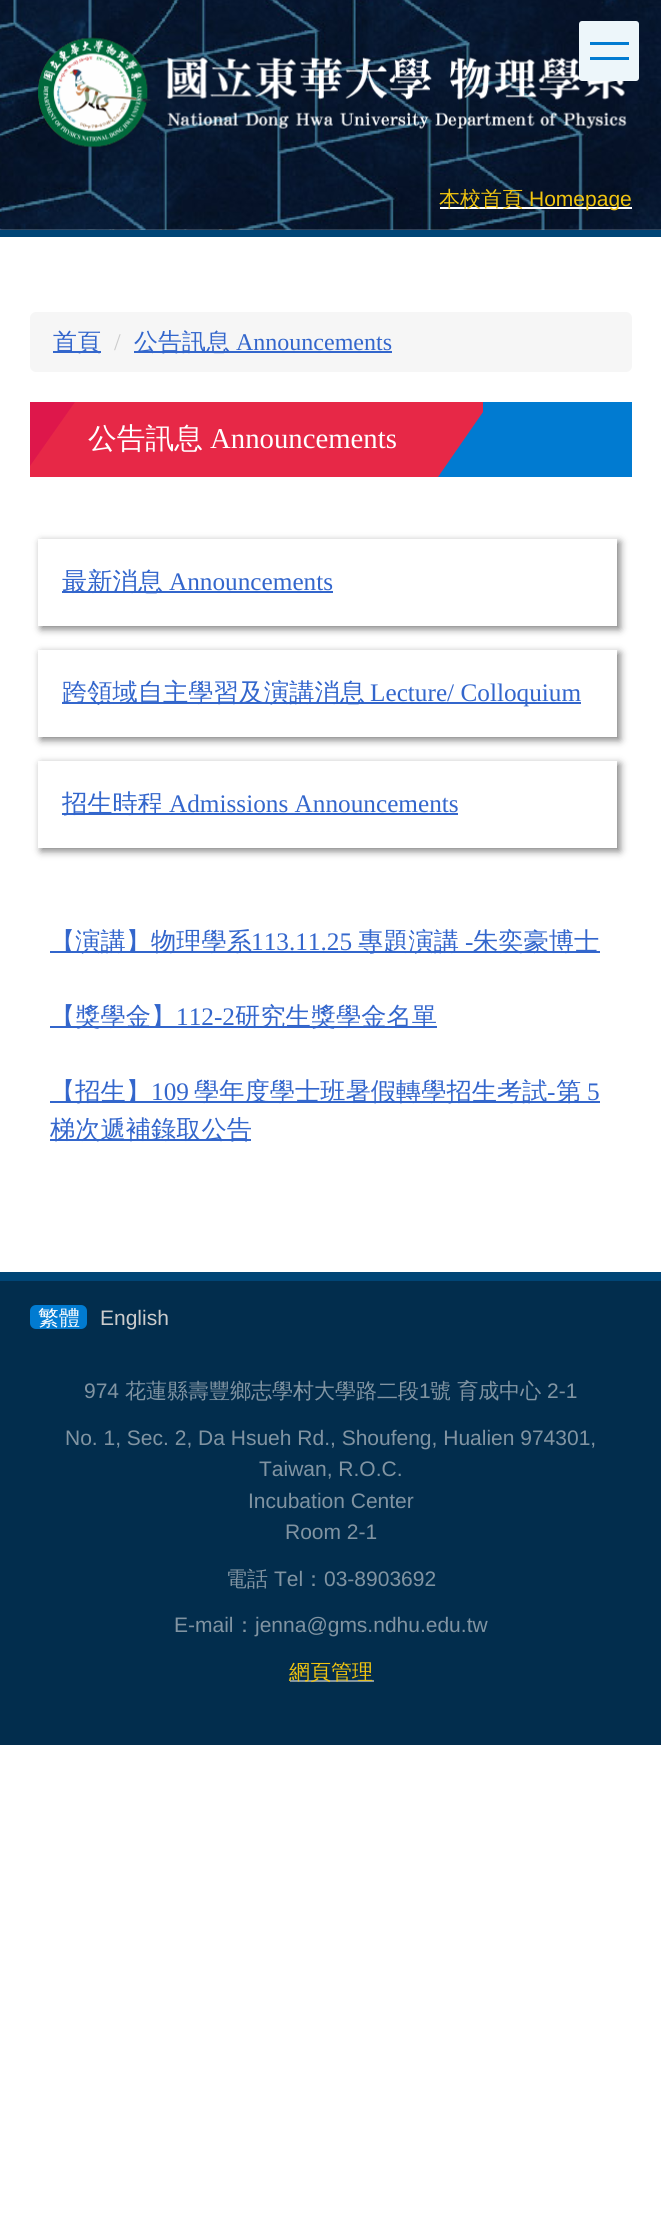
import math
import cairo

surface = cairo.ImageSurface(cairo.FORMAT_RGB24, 661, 2219)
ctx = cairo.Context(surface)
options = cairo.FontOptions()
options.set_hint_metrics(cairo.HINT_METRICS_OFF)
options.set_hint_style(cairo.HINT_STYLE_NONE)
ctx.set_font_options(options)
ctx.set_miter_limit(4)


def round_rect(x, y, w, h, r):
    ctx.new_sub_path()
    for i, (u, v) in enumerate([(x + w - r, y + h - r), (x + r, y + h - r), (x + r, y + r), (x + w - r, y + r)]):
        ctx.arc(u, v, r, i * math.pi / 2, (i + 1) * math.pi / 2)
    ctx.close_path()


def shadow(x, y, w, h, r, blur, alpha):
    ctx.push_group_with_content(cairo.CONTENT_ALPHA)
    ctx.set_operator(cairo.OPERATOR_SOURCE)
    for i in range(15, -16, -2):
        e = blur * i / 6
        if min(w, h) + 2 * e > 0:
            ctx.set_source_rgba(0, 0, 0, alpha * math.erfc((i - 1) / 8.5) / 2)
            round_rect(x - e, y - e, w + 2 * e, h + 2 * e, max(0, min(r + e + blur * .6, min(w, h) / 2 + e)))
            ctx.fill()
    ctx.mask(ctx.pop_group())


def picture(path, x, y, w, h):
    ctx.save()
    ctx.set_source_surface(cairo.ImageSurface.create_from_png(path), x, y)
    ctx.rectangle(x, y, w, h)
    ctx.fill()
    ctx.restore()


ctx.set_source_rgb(1, 1, 1)
ctx.paint()
picture("img1.png", 0, 0, 661, 230)
ctx.set_source_rgb(0, 0.271, 0.463)
ctx.rectangle(0, 230, 661, 7)
ctx.fill()
picture("img2.png", 38, 37, 589, 111)
ctx.set_source_rgb(0.929, 0.961, 0.98)
round_rect(579, 21, 60, 60, 3)
ctx.fill()
ctx.set_source_rgb(0.004, 0.482, 0.82)
ctx.rectangle(590, 42, 39, 3)
ctx.fill()
ctx.rectangle(590, 57, 39, 3)
ctx.fill()
ctx.set_source_rgb(1, 1, 1)
ctx.rectangle(440, 207, 192, 2)
ctx.fill()
ctx.select_font_face("WenQuanYi Zen Hei Medium")
ctx.set_font_size(21)
ctx.set_source_rgb(0.945, 0.769, 0.059)
ctx.move_to(439, 206)
ctx.show_text("本校首頁")
ctx.select_font_face("Liberation Sans")
ctx.move_to(529, 206)
ctx.show_text("Homepage")
ctx.set_source_rgb(0.961, 0.961, 0.961)
round_rect(30, 312, 602, 60, 6)
ctx.fill()
ctx.set_source_rgb(0.2, 0.4, 0.8)
ctx.rectangle(53, 351, 48, 2)
ctx.fill()
ctx.select_font_face("WenQuanYi Zen Hei Medium")
ctx.set_font_size(24)
ctx.move_to(53, 350)
ctx.show_text("首頁")
ctx.select_font_face("Liberation Serif")
ctx.set_source_rgb(0.8, 0.8, 0.8)
ctx.move_to(114, 350)
ctx.show_text("/")
ctx.set_source_rgb(0.2, 0.4, 0.8)
ctx.rectangle(134, 351, 258, 2)
ctx.fill()
ctx.select_font_face("WenQuanYi Zen Hei Medium")
ctx.move_to(134, 350)
ctx.show_text("公告訊息")
ctx.select_font_face("Liberation Serif")
ctx.move_to(236, 350)
ctx.show_text("Announcements")
ctx.set_source_rgb(0.004, 0.482, 0.82)
ctx.rectangle(483, 402, 149, 75)
ctx.fill()
ctx.set_source_rgb(0.906, 0.157, 0.278)
ctx.rectangle(30, 402, 453, 75)
ctx.fill()
ctx.set_source_rgb(0.871, 0.09, 0.294)
ctx.new_path()
ctx.move_to(30, 402)
ctx.line_to(75, 402)
ctx.line_to(30, 466)
ctx.close_path()
ctx.fill()
ctx.select_font_face("WenQuanYi Zen Hei Medium")
ctx.set_font_size(28.75)
ctx.set_source_rgb(1, 1, 1)
ctx.move_to(88, 448)
ctx.show_text("公告訊息")
ctx.select_font_face("Liberation Serif")
ctx.move_to(210, 448)
ctx.show_text("Announcements")
ctx.set_source_rgb(0.004, 0.482, 0.82)
ctx.new_path()
ctx.move_to(483, 477)
ctx.line_to(438, 477)
ctx.line_to(483, 412)
ctx.close_path()
ctx.fill()
ctx.set_source_rgb(0, 0, 0)
shadow(41, 542, 579, 87, 0, 4, 0.5)
ctx.set_source_rgb(1, 1, 1)
ctx.rectangle(38, 539, 579, 87)
ctx.fill()
ctx.set_source_rgb(0.2, 0.4, 0.8)
ctx.rectangle(62, 591, 271, 2)
ctx.fill()
ctx.select_font_face("WenQuanYi Zen Hei Medium")
ctx.set_font_size(25.25)
ctx.move_to(62, 590)
ctx.show_text("最新消息")
ctx.select_font_face("Liberation Serif")
ctx.move_to(169, 590)
ctx.show_text("Announcements")
ctx.set_source_rgb(0, 0, 0)
shadow(41, 653, 579, 87, 0, 4, 0.5)
ctx.set_source_rgb(1, 1, 1)
ctx.rectangle(38, 650, 579, 87)
ctx.fill()
ctx.set_source_rgb(0.2, 0.4, 0.8)
ctx.rectangle(62, 702, 519, 2)
ctx.fill()
ctx.select_font_face("WenQuanYi Zen Hei Medium")
ctx.move_to(62, 701)
ctx.show_text("跨領域自主學習及演講消息")
ctx.select_font_face("Liberation Serif")
ctx.move_to(370, 701)
ctx.show_text("Lecture/ Colloquium")
ctx.set_source_rgb(0, 0, 0)
shadow(41, 764, 579, 87, 0, 4, 0.5)
ctx.set_source_rgb(1, 1, 1)
ctx.rectangle(38, 761, 579, 87)
ctx.fill()
ctx.set_source_rgb(0.2, 0.4, 0.8)
ctx.rectangle(62, 813, 396, 2)
ctx.fill()
ctx.select_font_face("WenQuanYi Zen Hei Medium")
ctx.move_to(62, 812)
ctx.show_text("招生時程")
ctx.select_font_face("Liberation Serif")
ctx.move_to(169, 812)
ctx.show_text("Admissions Announcements")
ctx.rectangle(50, 951, 550, 2)
ctx.fill()
ctx.select_font_face("WenQuanYi Zen Hei Medium")
ctx.move_to(50, 950)
ctx.show_text("【演講】物理學系")
ctx.select_font_face("Liberation Serif")
ctx.move_to(251, 950)
ctx.show_text("113.11.25")
ctx.select_font_face("WenQuanYi Zen Hei Medium")
ctx.move_to(358, 950)
ctx.show_text("專題演講")
ctx.select_font_face("Liberation Serif")
ctx.move_to(465, 950)
ctx.show_text("-")
ctx.select_font_face("WenQuanYi Zen Hei Medium")
ctx.move_to(473, 950)
ctx.show_text("朱奕豪博士")
ctx.rectangle(50, 1026, 387, 2)
ctx.fill()
ctx.move_to(50, 1025)
ctx.show_text("【獎學金】")
ctx.select_font_face("Liberation Serif")
ctx.move_to(176, 1025)
ctx.show_text("112-2")
ctx.select_font_face("WenQuanYi Zen Hei Medium")
ctx.move_to(235, 1025)
ctx.show_text("研究生獎學金名單")
ctx.rectangle(50, 1101, 550, 2)
ctx.fill()
ctx.move_to(50, 1100)
ctx.show_text("【招生】")
ctx.select_font_face("Liberation Serif")
ctx.move_to(151, 1100)
ctx.show_text("109")
ctx.select_font_face("WenQuanYi Zen Hei Medium")
ctx.move_to(194, 1100)
ctx.show_text("學年度學士班暑假轉學招生考試")
ctx.select_font_face("Liberation Serif")
ctx.move_to(547, 1100)
ctx.show_text("-")
ctx.select_font_face("WenQuanYi Zen Hei Medium")
ctx.move_to(556, 1100)
ctx.show_text("第")
ctx.select_font_face("Liberation Serif")
ctx.move_to(587, 1100)
ctx.show_text("5")
ctx.rectangle(50, 1139, 201, 2)
ctx.fill()
ctx.select_font_face("WenQuanYi Zen Hei Medium")
ctx.move_to(50, 1138)
ctx.show_text("梯次遞補錄取公告")
ctx.set_source_rgb(0.008, 0.176, 0.302)
ctx.rectangle(0, 1281, 661, 464)
ctx.fill()
ctx.set_source_rgb(0, 0.271, 0.463)
ctx.rectangle(0, 1272, 661, 9)
ctx.fill()
ctx.set_source_rgb(0.004, 0.482, 0.82)
round_rect(30, 1305, 57, 24, 6)
ctx.fill()
ctx.set_font_size(21)
ctx.set_source_rgb(1, 1, 1)
ctx.move_to(38, 1325)
ctx.show_text("繁體")
ctx.select_font_face("Liberation Sans")
ctx.set_source_rgb(0.8, 0.8, 0.8)
ctx.move_to(100, 1325)
ctx.show_text("English")
ctx.set_source_rgb(0.506, 0.58, 0.635)
ctx.move_to(84, 1398)
ctx.show_text("974")
ctx.select_font_face("WenQuanYi Zen Hei Medium")
ctx.move_to(125, 1398)
ctx.show_text("花蓮縣壽豐鄉志學村大學路二段")
ctx.select_font_face("Liberation Sans")
ctx.move_to(419, 1398)
ctx.show_text("1")
ctx.select_font_face("WenQuanYi Zen Hei Medium")
ctx.move_to(430, 1398)
ctx.show_text("號 育成中心")
ctx.select_font_face("Liberation Sans")
ctx.move_to(547, 1398)
ctx.show_text("2-1")
ctx.move_to(65, 1445)
ctx.show_text("No. 1, Sec. 2, Da Hsueh Rd., Shoufeng, Hualien 974301,")
ctx.move_to(259, 1476)
ctx.show_text("Taiwan, R.O.C.")
ctx.move_to(248, 1508)
ctx.show_text("Incubation Center")
ctx.move_to(285, 1539)
ctx.show_text("Room 2-1")
ctx.select_font_face("WenQuanYi Zen Hei Medium")
ctx.move_to(226, 1586)
ctx.show_text("電話")
ctx.select_font_face("Liberation Sans")
ctx.move_to(274, 1586)
ctx.show_text("Tel")
ctx.select_font_face("WenQuanYi Zen Hei Medium")
ctx.move_to(303, 1586)
ctx.show_text("：")
ctx.select_font_face("Liberation Sans")
ctx.move_to(324, 1586)
ctx.show_text("03-8903692")
ctx.move_to(174, 1632)
ctx.show_text("E-mail")
ctx.select_font_face("WenQuanYi Zen Hei Medium")
ctx.move_to(234, 1632)
ctx.show_text("：")
ctx.select_font_face("Liberation Sans")
ctx.move_to(255, 1632)
ctx.show_text("jenna@gms.ndhu.edu.tw")
ctx.rectangle(290, 1680, 84, 2)
ctx.fill()
ctx.select_font_face("WenQuanYi Zen Hei Medium")
ctx.set_source_rgb(0.945, 0.769, 0.059)
ctx.move_to(289, 1679)
ctx.show_text("網頁管理")
surface.write_to_png("page.png")
